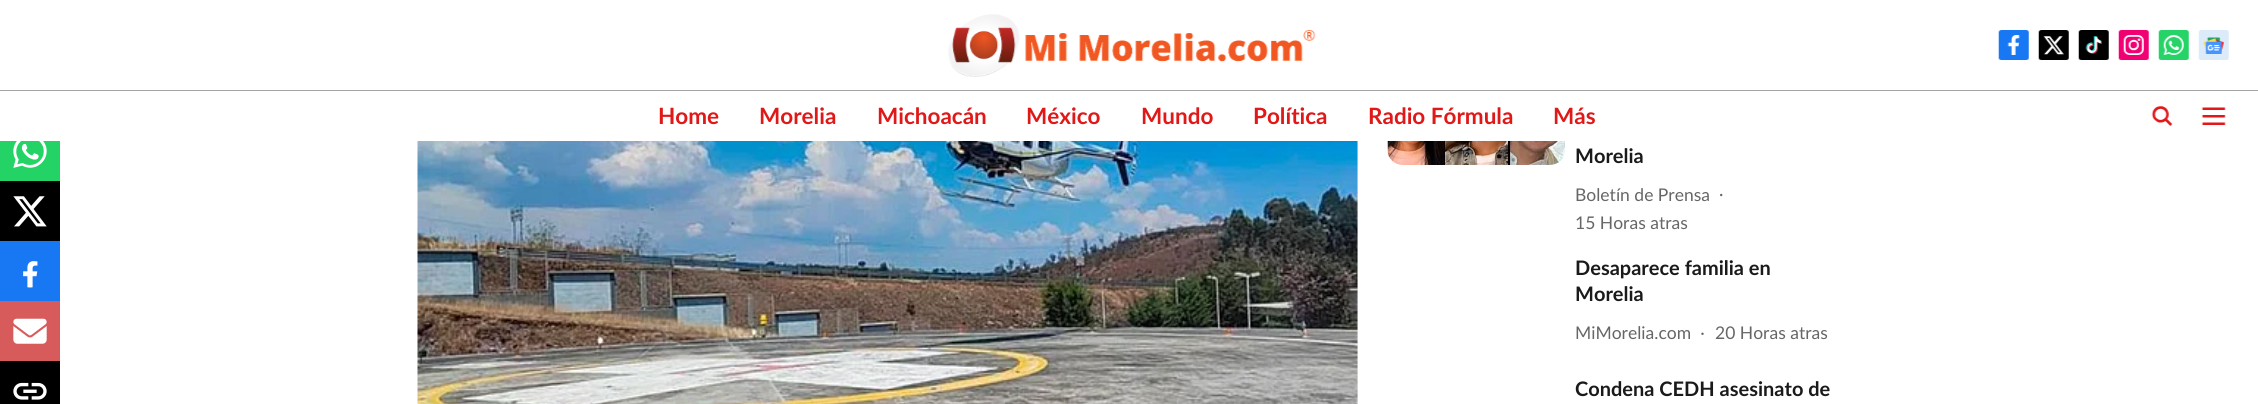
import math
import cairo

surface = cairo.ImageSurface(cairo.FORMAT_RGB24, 2258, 404)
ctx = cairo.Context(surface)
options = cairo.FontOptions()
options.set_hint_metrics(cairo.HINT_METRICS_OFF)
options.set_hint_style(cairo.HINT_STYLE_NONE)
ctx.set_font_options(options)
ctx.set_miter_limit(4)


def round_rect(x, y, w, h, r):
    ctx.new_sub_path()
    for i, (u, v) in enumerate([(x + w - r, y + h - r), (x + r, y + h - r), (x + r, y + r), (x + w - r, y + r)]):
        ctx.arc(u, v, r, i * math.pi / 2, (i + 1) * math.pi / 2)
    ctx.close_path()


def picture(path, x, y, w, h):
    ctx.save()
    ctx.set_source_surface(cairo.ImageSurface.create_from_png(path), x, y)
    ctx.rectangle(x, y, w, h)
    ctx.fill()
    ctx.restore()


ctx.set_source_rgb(1, 1, 1)
ctx.paint()
ctx.set_source_rgb(0.941, 0.941, 0.941)
round_rect(1388, 65, 177, 100, 15)
ctx.fill()
ctx.set_source_rgb(1, 1, 1)
ctx.rectangle(1388, 65, 177, 25)
ctx.fill()
ctx.set_source_rgb(0.643, 0.643, 0.643)
ctx.rectangle(0, 90, 2258, 1)
ctx.fill()
picture("img1.png", 948, 14, 368, 63)
picture("img2.png", 1998, 30, 31, 30)
picture("img3.png", 2038, 30, 31, 30)
picture("img4.png", 2078, 30, 31, 30)
picture("img5.png", 2118, 30, 31, 30)
picture("img6.png", 2158, 30, 31, 30)
picture("img7.png", 2198, 30, 31, 30)
ctx.set_source_rgb(1, 1, 1)
ctx.rectangle(1388, 91, 177, 50)
ctx.fill()
ctx.select_font_face("Lato", cairo.FONT_SLANT_NORMAL, cairo.FONT_WEIGHT_BOLD)
ctx.set_font_size(22.5)
ctx.set_source_rgb(0.878, 0.094, 0.094)
ctx.move_to(658, 124)
ctx.show_text("Home")
ctx.move_to(759, 124)
ctx.show_text("Morelia")
ctx.move_to(877, 124)
ctx.show_text("Michoacán")
ctx.move_to(1026, 124)
ctx.show_text("México")
ctx.move_to(1141, 124)
ctx.show_text("Mundo")
ctx.move_to(1253, 124)
ctx.show_text("Política")
ctx.move_to(1368, 124)
ctx.show_text("Radio Fórmula")
ctx.move_to(1553, 124)
ctx.show_text("Más")
picture("img8.png", 2151, 106, 22, 20)
picture("img9.png", 2201, 107, 25, 18)
ctx.set_source_rgb(0.141, 0.827, 0.4)
ctx.rectangle(0, 141, 60, 40)
ctx.fill()
picture("img10.png", 13, 141, 34, 27)
ctx.set_source_rgb(0, 0, 0)
ctx.rectangle(0, 181, 60, 60)
ctx.fill()
picture("img11.png", 13, 196, 34, 31)
ctx.set_source_rgb(0.094, 0.467, 0.949)
ctx.rectangle(0, 241, 60, 60)
ctx.fill()
picture("img12.png", 23, 261, 15, 27)
ctx.set_source_rgb(0.847, 0.357, 0.357)
ctx.rectangle(0, 301, 60, 60)
ctx.fill()
picture("img13.png", 13, 318, 34, 26)
ctx.set_source_rgb(0, 0, 0)
ctx.rectangle(0, 361, 60, 43)
ctx.fill()
picture("img14.png", 13, 382, 34, 18)
ctx.set_source_rgb(0.941, 0.941, 0.941)
ctx.rectangle(1357, 141, 1, 263)
ctx.fill()
picture("img15.png", 417, 141, 941, 263)
picture("img16.png", 1387, 141, 178, 24)
ctx.set_font_size(20)
ctx.set_source_rgb(0.102, 0.102, 0.102)
ctx.move_to(1575, 163)
ctx.show_text("Morelia")
ctx.select_font_face("Lato")
ctx.set_font_size(17.5)
ctx.set_source_rgb(0.4, 0.4, 0.4)
ctx.move_to(1575, 201)
ctx.show_text("Boletín de Prensa")
ctx.new_path()
ctx.arc(1721.2, 195, 1.2, 0, 2 * math.pi)
ctx.fill()
ctx.move_to(1575, 229)
ctx.show_text("15 Horas atras")
ctx.select_font_face("Lato", cairo.FONT_SLANT_NORMAL, cairo.FONT_WEIGHT_BOLD)
ctx.set_font_size(20)
ctx.set_source_rgb(0.102, 0.102, 0.102)
ctx.move_to(1575, 275)
ctx.show_text("Desaparece familia en")
ctx.move_to(1575, 301)
ctx.show_text("Morelia")
ctx.select_font_face("Lato")
ctx.set_font_size(17.5)
ctx.set_source_rgb(0.4, 0.4, 0.4)
ctx.move_to(1575, 339)
ctx.show_text("MiMorelia.com")
ctx.new_path()
ctx.arc(1702.5, 333.8, 1.2, 0, 2 * math.pi)
ctx.fill()
ctx.move_to(1715, 339)
ctx.show_text("20 Horas atras")
ctx.select_font_face("Lato", cairo.FONT_SLANT_NORMAL, cairo.FONT_WEIGHT_BOLD)
ctx.set_font_size(20)
ctx.set_source_rgb(0.102, 0.102, 0.102)
ctx.move_to(1575, 396)
ctx.show_text("Condena CEDH asesinato de")
surface.write_to_png("page.png")
